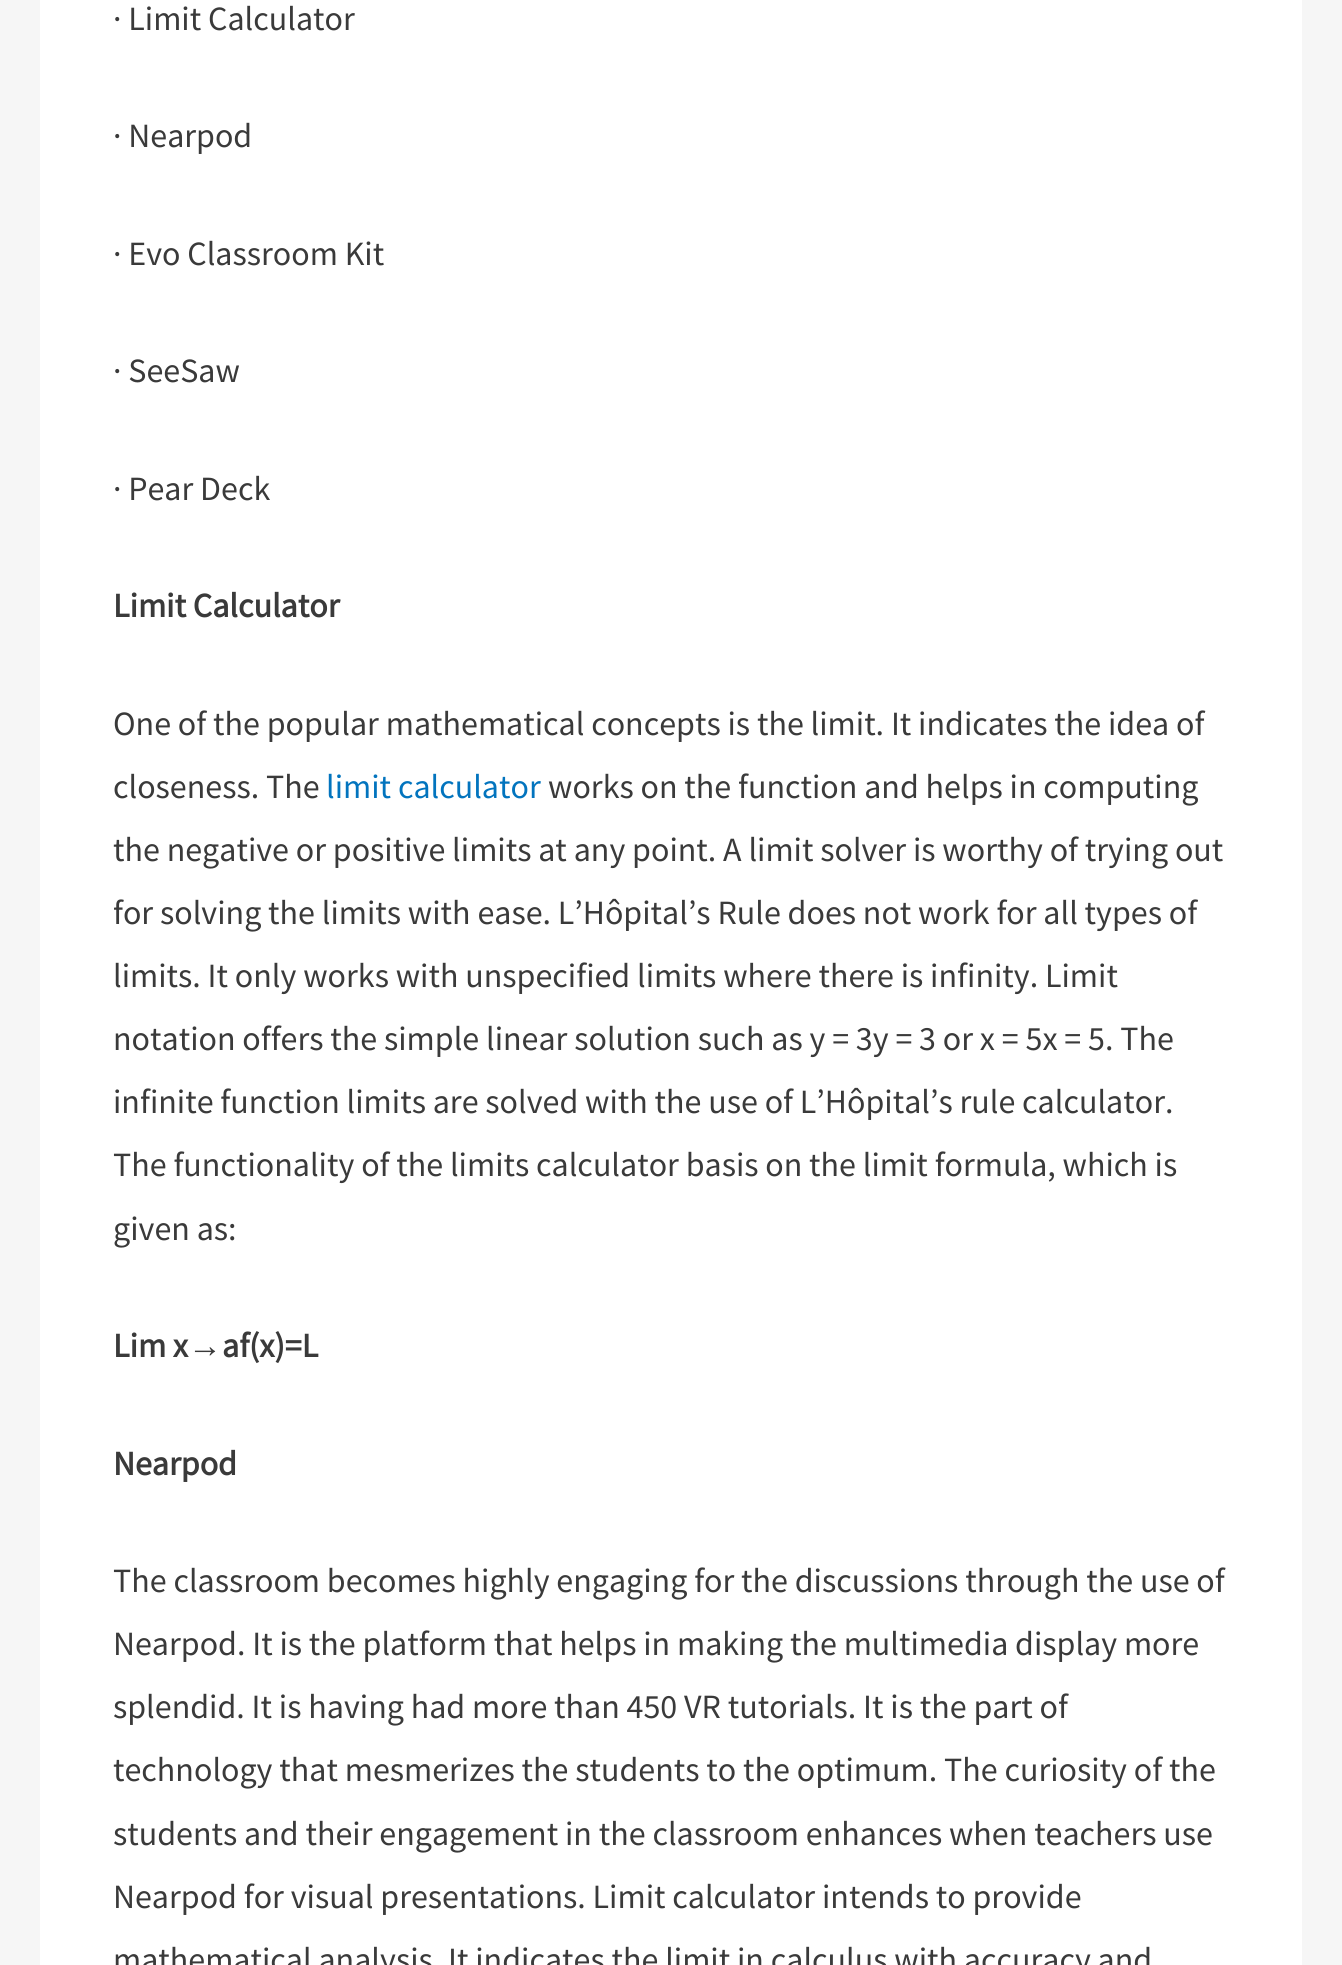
import math
import cairo

surface = cairo.ImageSurface(cairo.FORMAT_RGB24, 1342, 1965)
ctx = cairo.Context(surface)
options = cairo.FontOptions()
options.set_hint_metrics(cairo.HINT_METRICS_OFF)
options.set_hint_style(cairo.HINT_STYLE_NONE)
ctx.set_font_options(options)
ctx.set_miter_limit(4)


ctx.set_source_rgb(0.961, 0.961, 0.961)
ctx.paint()
ctx.set_source_rgb(1, 1, 1)
ctx.rectangle(40, 0, 1262, 1965)
ctx.fill()
ctx.select_font_face("Source Sans Pro")
ctx.set_font_size(34)
ctx.set_source_rgb(0.227, 0.227, 0.227)
ctx.move_to(113, 30)
ctx.show_text("· Limit Calculator")
ctx.move_to(113, 147)
ctx.show_text("· Nearpod")
ctx.move_to(113, 265)
ctx.show_text("· Evo Classroom Kit")
ctx.move_to(113, 382)
ctx.show_text("· SeeSaw")
ctx.move_to(113, 500)
ctx.show_text("· Pear Deck")
ctx.select_font_face("Source Sans Pro", cairo.FONT_SLANT_NORMAL, cairo.FONT_WEIGHT_BOLD)
ctx.move_to(113, 617)
ctx.show_text("Limit Calculator")
ctx.select_font_face("Source Sans Pro")
ctx.move_to(113, 735)
ctx.show_text("One of the popular mathematical concepts is the limit. It indicates the idea of")
ctx.move_to(113, 798)
ctx.show_text("closeness. The")
ctx.set_source_rgb(0.008, 0.455, 0.745)
ctx.move_to(326, 798)
ctx.show_text("limit calculator")
ctx.set_source_rgb(0.227, 0.227, 0.227)
ctx.move_to(548, 798)
ctx.show_text("works on the function and helps in computing")
ctx.move_to(113, 861)
ctx.show_text("the negative or positive limits at any point. A limit solver is worthy of trying out")
ctx.move_to(113, 924)
ctx.show_text("for solving the limits with ease. L’Hôpital’s Rule does not work for all types of")
ctx.move_to(113, 987)
ctx.show_text("limits. It only works with unspecified limits where there is infinity. Limit")
ctx.move_to(113, 1050)
ctx.show_text("notation offers the simple linear solution such as y = 3y = 3 or x = 5x = 5. The")
ctx.move_to(113, 1113)
ctx.show_text("infinite function limits are solved with the use of L’Hôpital’s rule calculator.")
ctx.move_to(113, 1176)
ctx.show_text("The functionality of the limits calculator basis on the limit formula, which is")
ctx.move_to(113, 1240)
ctx.show_text("given as:")
ctx.select_font_face("Source Sans Pro", cairo.FONT_SLANT_NORMAL, cairo.FONT_WEIGHT_BOLD)
ctx.move_to(113, 1357)
ctx.show_text("Lim x")
ctx.select_font_face("Liberation Sans", cairo.FONT_SLANT_NORMAL, cairo.FONT_WEIGHT_BOLD)
ctx.move_to(188, 1357)
ctx.show_text("→")
ctx.select_font_face("Source Sans Pro", cairo.FONT_SLANT_NORMAL, cairo.FONT_WEIGHT_BOLD)
ctx.move_to(222, 1357)
ctx.show_text("af(x)=L")
ctx.move_to(113, 1475)
ctx.show_text("Nearpod")
ctx.select_font_face("Source Sans Pro")
ctx.move_to(113, 1592)
ctx.show_text("The classroom becomes highly engaging for the discussions through the use of")
ctx.move_to(113, 1655)
ctx.show_text("Nearpod. It is the platform that helps in making the multimedia display more")
ctx.move_to(113, 1718)
ctx.show_text("splendid. It is having had more than 450 VR tutorials. It is the part of")
ctx.move_to(113, 1781)
ctx.show_text("technology that mesmerizes the students to the optimum. The curiosity of the")
ctx.move_to(113, 1845)
ctx.show_text("students and their engagement in the classroom enhances when teachers use")
ctx.move_to(113, 1908)
ctx.show_text("Nearpod for visual presentations. Limit calculator intends to provide")
ctx.move_to(113, 1971)
ctx.show_text("mathematical analysis. It indicates the limit in calculus with accuracy and")
surface.write_to_png("page.png")
